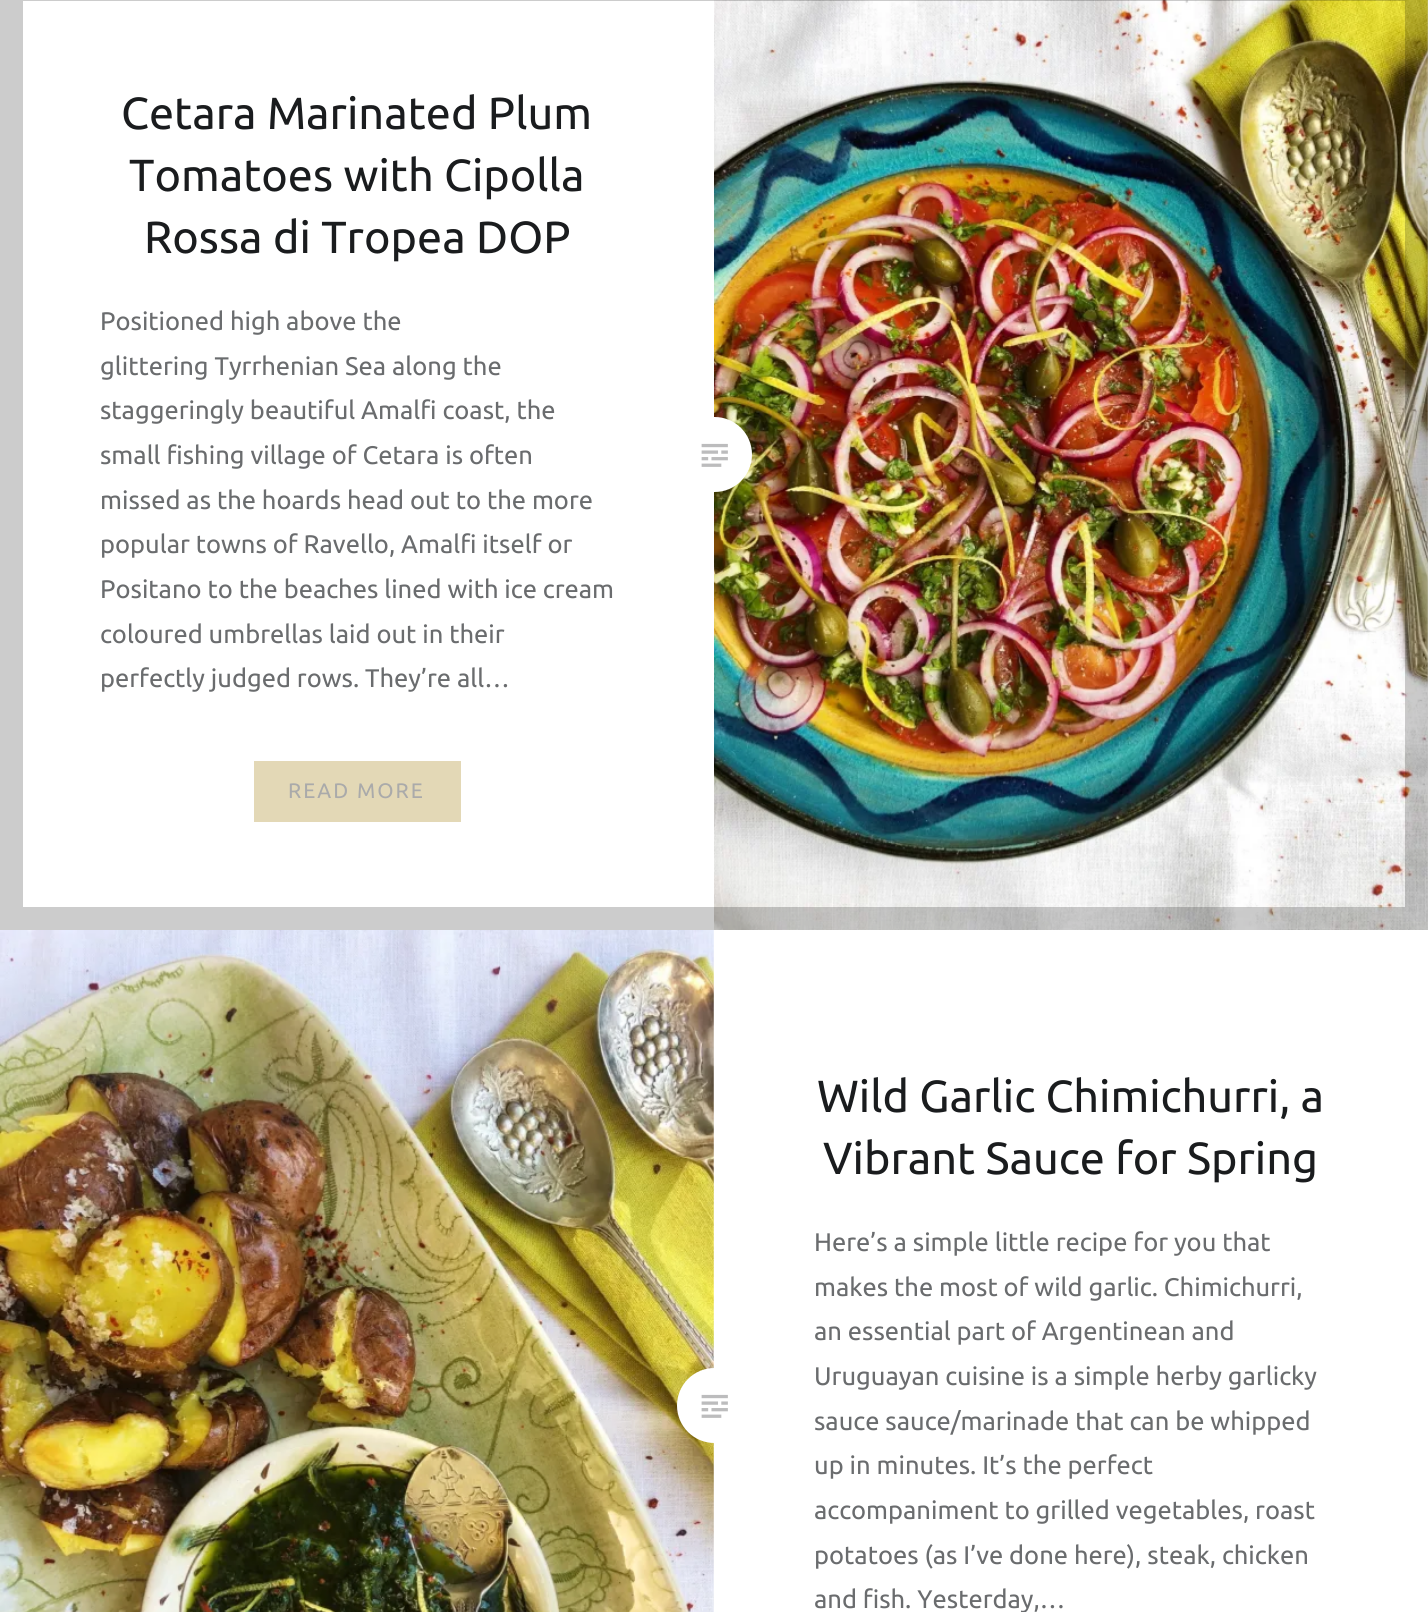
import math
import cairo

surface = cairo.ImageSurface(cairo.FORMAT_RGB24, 1428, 1612)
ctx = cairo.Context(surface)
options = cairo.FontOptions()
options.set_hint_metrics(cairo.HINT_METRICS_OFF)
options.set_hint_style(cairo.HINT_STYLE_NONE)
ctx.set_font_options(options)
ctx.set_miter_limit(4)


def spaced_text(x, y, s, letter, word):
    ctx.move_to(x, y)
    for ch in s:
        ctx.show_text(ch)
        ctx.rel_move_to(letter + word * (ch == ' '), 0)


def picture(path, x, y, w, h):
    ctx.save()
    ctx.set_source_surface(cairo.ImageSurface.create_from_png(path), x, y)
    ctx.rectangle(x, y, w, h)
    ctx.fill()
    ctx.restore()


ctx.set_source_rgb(1, 1, 1)
ctx.paint()
ctx.set_source_rgb(0.89, 0.847, 0.714)
ctx.rectangle(254, 761, 207, 61)
ctx.fill()
picture("img2.png", 714, 0, 714, 930)
ctx.set_source_rgb(1, 1, 1)
ctx.arc(714.5, 454.5, 37.5, 0, 2 * math.pi)
ctx.fill()
ctx.rectangle(11.5, -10.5, 1405, 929)
ctx.set_source_rgba(0, 0, 0, 0.2)
ctx.set_line_width(23)
ctx.stroke()
ctx.select_font_face("Ubuntu")
ctx.set_font_size(45)
ctx.set_source_rgb(0.102, 0.11, 0.118)
ctx.move_to(121, 129)
ctx.show_text("Cetara Marinated Plum")
ctx.move_to(129, 191)
ctx.show_text("Tomatoes with Cipolla")
ctx.move_to(144, 253)
ctx.show_text("Rossa di Tropea DOP")
ctx.set_font_size(25.5)
ctx.set_source_rgb(0.416, 0.424, 0.431)
ctx.move_to(100, 330)
ctx.show_text("Positioned high above the")
ctx.move_to(100, 375)
ctx.show_text("glittering Tyrrhenian Sea along the")
ctx.move_to(100, 419)
ctx.show_text("staggeringly beautiful Amalfi coast, the")
ctx.move_to(100, 464)
ctx.show_text("small fishing village of Cetara is often")
ctx.move_to(100, 509)
ctx.show_text("missed as the hoards head out to the more")
ctx.move_to(100, 553)
ctx.show_text("popular towns of Ravello, Amalfi itself or")
ctx.move_to(100, 598)
ctx.show_text("Positano to the beaches lined with ice cream")
ctx.move_to(100, 643)
ctx.show_text("coloured umbrellas laid out in their")
ctx.move_to(100, 687)
ctx.show_text("perfectly judged rows. They’re all…")
ctx.set_font_size(21)
ctx.set_source_rgb(0.667, 0.667, 0.667)
spaced_text(288, 798, "READ MORE", 2, 0)
picture("img1.png", 701, 443, 27, 24)
picture("img3.png", 0, 930, 714, 682)
ctx.set_source_rgb(1, 1, 1)
ctx.arc(714.5, 1405.5, 37.5, 0, 2 * math.pi)
ctx.fill()
ctx.set_font_size(45)
ctx.set_source_rgb(0.102, 0.11, 0.118)
ctx.move_to(817, 1112)
ctx.show_text("Wild Garlic Chimichurri, a")
ctx.move_to(823, 1174)
ctx.show_text("Vibrant Sauce for Spring")
ctx.set_font_size(25.5)
ctx.set_source_rgb(0.416, 0.424, 0.431)
ctx.move_to(814, 1251)
ctx.show_text("Here’s a simple little recipe for you that")
ctx.move_to(814, 1296)
ctx.show_text("makes the most of wild garlic. Chimichurri,")
ctx.move_to(814, 1340)
ctx.show_text("an essential part of Argentinean and")
ctx.move_to(814, 1385)
ctx.show_text("Uruguayan cuisine is a simple herby garlicky")
ctx.move_to(814, 1430)
ctx.show_text("sauce sauce/marinade that can be whipped")
ctx.move_to(814, 1474)
ctx.show_text("up in minutes. It’s the perfect")
ctx.move_to(814, 1519)
ctx.show_text("accompaniment to grilled vegetables, roast")
ctx.move_to(814, 1564)
ctx.show_text("potatoes (as I’ve done here), steak, chicken")
ctx.move_to(814, 1608)
ctx.show_text("and fish. Yesterday,…")
picture("img1.png", 701, 1394, 27, 24)
surface.write_to_png("page.png")
